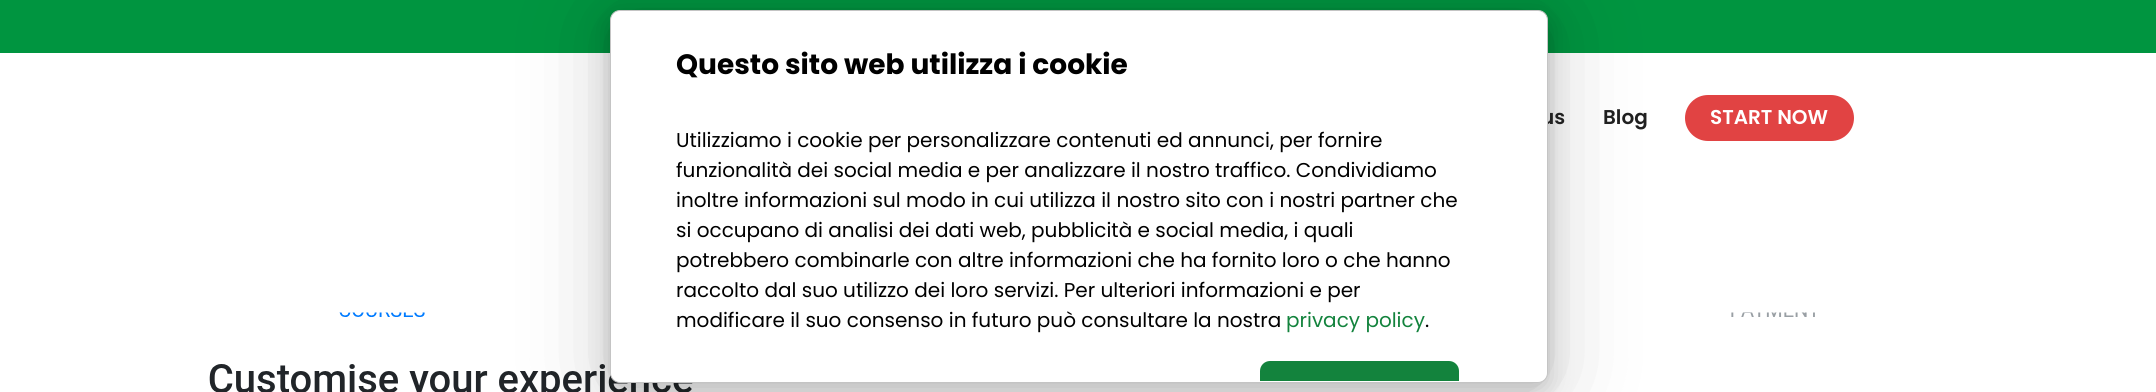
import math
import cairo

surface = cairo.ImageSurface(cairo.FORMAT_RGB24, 2156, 392)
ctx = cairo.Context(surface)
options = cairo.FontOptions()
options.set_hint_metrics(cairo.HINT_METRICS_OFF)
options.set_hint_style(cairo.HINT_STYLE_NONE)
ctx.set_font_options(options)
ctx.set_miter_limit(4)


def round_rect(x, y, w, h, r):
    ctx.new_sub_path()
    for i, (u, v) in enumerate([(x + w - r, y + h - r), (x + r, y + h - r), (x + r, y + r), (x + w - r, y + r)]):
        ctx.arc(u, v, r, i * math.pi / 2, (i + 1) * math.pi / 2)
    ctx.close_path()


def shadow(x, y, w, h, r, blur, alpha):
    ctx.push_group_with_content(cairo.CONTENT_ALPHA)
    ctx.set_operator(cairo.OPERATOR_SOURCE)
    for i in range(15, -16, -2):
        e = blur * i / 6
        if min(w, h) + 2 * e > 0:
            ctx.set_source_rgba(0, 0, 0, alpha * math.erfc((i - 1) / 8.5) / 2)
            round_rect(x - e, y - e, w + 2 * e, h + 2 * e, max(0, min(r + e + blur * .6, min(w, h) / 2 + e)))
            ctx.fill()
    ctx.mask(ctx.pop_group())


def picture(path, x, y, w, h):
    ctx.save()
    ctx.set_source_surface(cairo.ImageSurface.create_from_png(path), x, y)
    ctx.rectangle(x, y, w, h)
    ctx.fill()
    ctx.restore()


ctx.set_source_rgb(1, 1, 1)
ctx.paint()
ctx.set_source_rgb(0, 0.584, 0.251)
ctx.rectangle(0, 0, 2156, 53)
ctx.fill()
picture("img1.png", 209, 312, 1606, 80)
ctx.set_source_rgb(0, 0, 0)
shadow(610, 18, 938, 372, 10, 12.5, 0.19)
shadow(610, 15, 938, 373, 10, 44, 0.2)
ctx.select_font_face("Poppins SemiBold")
ctx.set_font_size(20)
ctx.set_source_rgb(0.125, 0.125, 0.125)
ctx.move_to(1541, 124)
ctx.show_text("us")
ctx.set_source_rgb(1, 1, 1)
round_rect(610.5, 10.5, 937, 372, 9.5)
ctx.fill_preserve()
ctx.set_source_rgb(0.769, 0.769, 0.769)
ctx.set_line_width(1)
ctx.stroke()
ctx.select_font_face("Poppins", cairo.FONT_SLANT_NORMAL, cairo.FONT_WEIGHT_BOLD)
ctx.set_font_size(28)
ctx.set_source_rgb(0, 0, 0)
ctx.move_to(676, 74)
ctx.show_text("Questo sito web utilizza i cookie")
ctx.select_font_face("Poppins")
ctx.set_font_size(20)
ctx.move_to(676, 147)
ctx.show_text("Utilizziamo i cookie per personalizzare contenuti ed annunci, per fornire")
ctx.move_to(676, 177)
ctx.show_text("funzionalità dei social media e per analizzare il nostro traffico. Condividiamo")
ctx.move_to(676, 207)
ctx.show_text("inoltre informazioni sul modo in cui utilizza il nostro sito con i nostri partner che")
ctx.move_to(676, 237)
ctx.show_text("si occupano di analisi dei dati web, pubblicità e social media, i quali")
ctx.move_to(676, 267)
ctx.show_text("potrebbero combinarle con altre informazioni che ha fornito loro o che hanno")
ctx.move_to(676, 297)
ctx.show_text("raccolto dal suo utilizzo dei loro servizi. Per ulteriori informazioni e per")
ctx.move_to(676, 327)
ctx.show_text("modificare il suo consenso in futuro può consultare la nostra")
ctx.set_source_rgb(0.075, 0.514, 0.239)
ctx.move_to(1286, 327)
ctx.show_text("privacy policy")
ctx.set_source_rgb(0, 0, 0)
ctx.move_to(1425, 327)
ctx.show_text(".")
ctx.set_source_rgb(0.075, 0.514, 0.239)
ctx.new_path()
ctx.move_to(1270, 361)
ctx.line_to(1449, 361)
ctx.curve_to(1454.5, 361, 1459, 365.5, 1459, 371)
ctx.line_to(1459, 381)
ctx.line_to(1260, 381)
ctx.line_to(1260, 371)
ctx.curve_to(1260, 365.5, 1264.5, 361, 1270, 361)
ctx.close_path()
ctx.fill()
ctx.select_font_face("Poppins SemiBold")
ctx.set_source_rgb(0.125, 0.125, 0.125)
ctx.move_to(1603, 124)
ctx.show_text("Blog")
ctx.set_source_rgb(0.882, 0.263, 0.263)
round_rect(1685, 95, 169, 46, 23)
ctx.fill()
ctx.set_source_rgb(1, 1, 1)
ctx.move_to(1710, 124)
ctx.show_text("START NOW")
surface.write_to_png("page.png")
